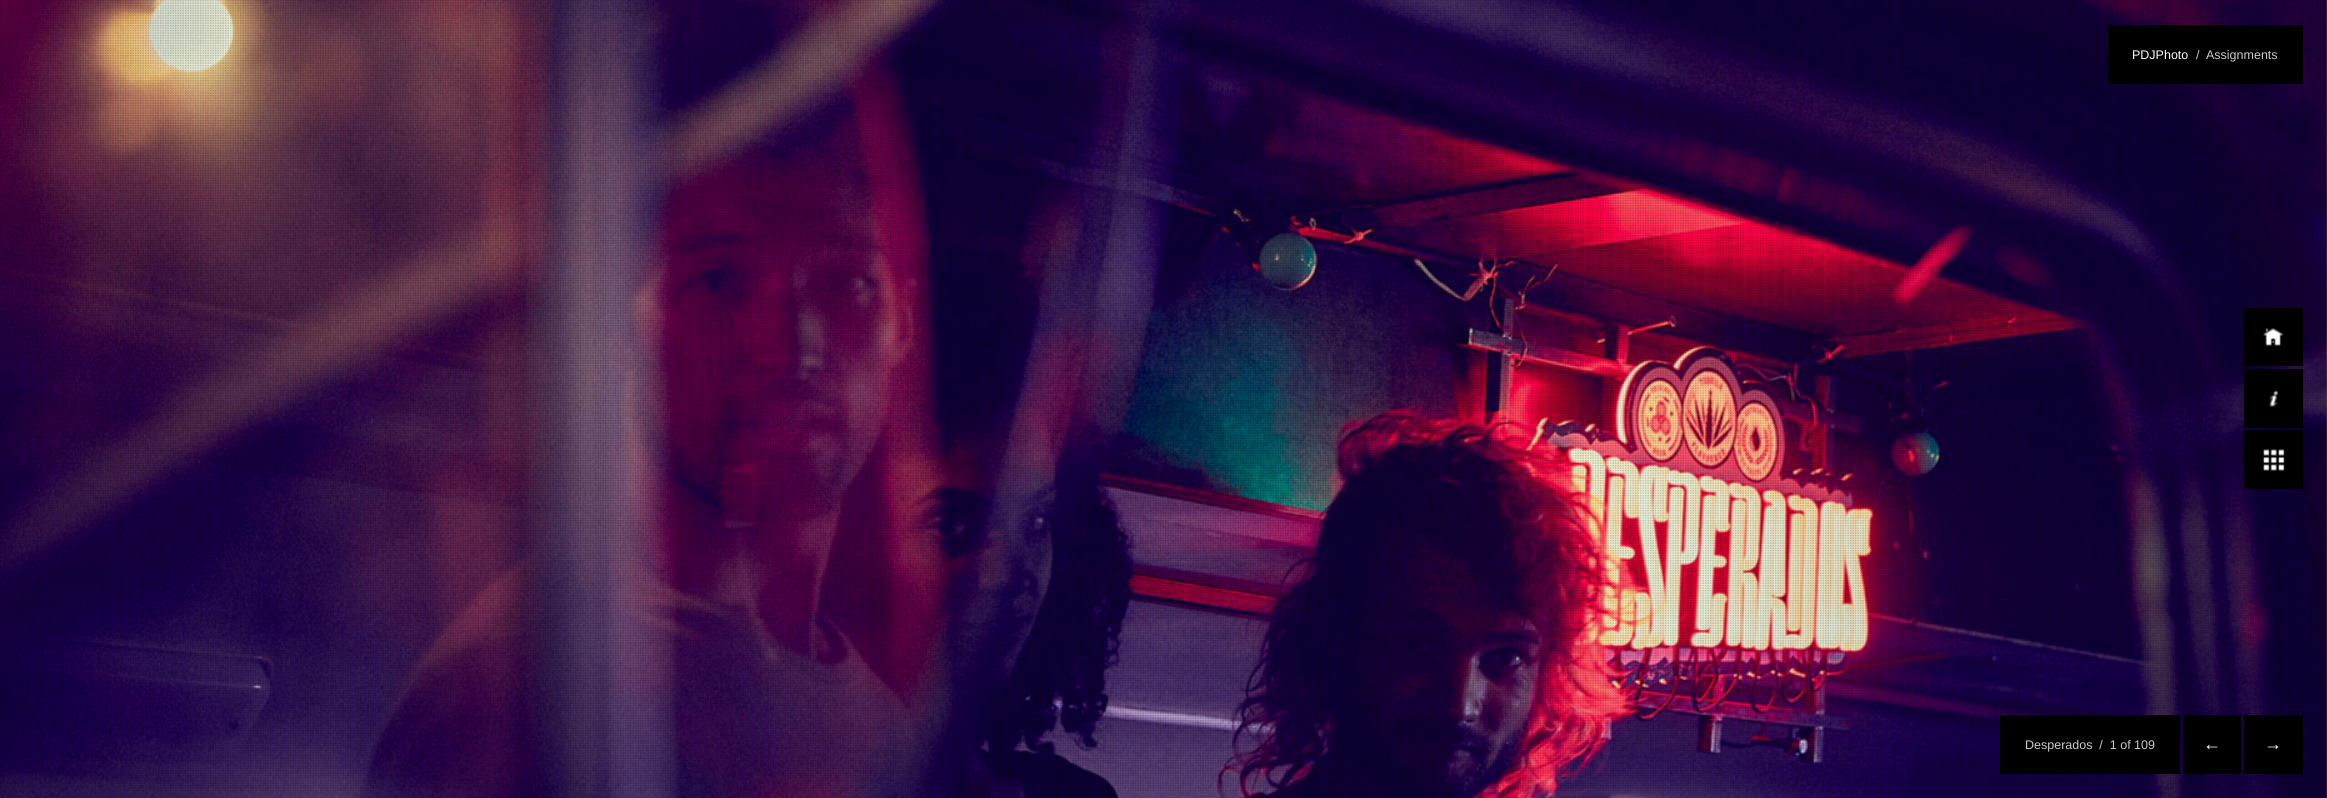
import math
import cairo

surface = cairo.ImageSurface(cairo.FORMAT_RGB24, 2327, 798)
ctx = cairo.Context(surface)
options = cairo.FontOptions()
options.set_hint_metrics(cairo.HINT_METRICS_OFF)
options.set_hint_style(cairo.HINT_STYLE_NONE)
ctx.set_font_options(options)
ctx.set_miter_limit(4)


def picture(path, x, y, w, h):
    ctx.save()
    ctx.set_source_surface(cairo.ImageSurface.create_from_png(path), x, y)
    ctx.rectangle(x, y, w, h)
    ctx.fill()
    ctx.restore()


ctx.set_source_rgb(1, 1, 1)
ctx.paint()
picture("img1.png", 0, 0, 2327, 798)
picture("img2.png", 0, 0, 2327, 798)
ctx.set_source_rgb(0, 0, 0)
ctx.rectangle(2108, 25, 195, 59)
ctx.fill()
ctx.select_font_face("Liberation Sans")
ctx.set_font_size(12.5)
ctx.set_source_rgb(1, 1, 1)
ctx.move_to(2132, 59)
ctx.show_text("PDJPhoto")
ctx.set_source_rgb(0.8, 0.8, 0.8)
ctx.move_to(2196, 59)
ctx.show_text("/")
ctx.move_to(2206, 59)
ctx.show_text("Assignments")
ctx.set_source_rgb(0, 0, 0)
ctx.rectangle(2244, 308, 59, 58)
ctx.fill()
picture("img3.png", 2263, 328, 20, 18)
ctx.rectangle(2244, 369, 59, 59)
ctx.fill()
picture("img4.png", 2269, 390, 9, 17)
ctx.rectangle(2244, 430, 59, 59)
ctx.fill()
picture("img5.png", 2263, 449, 22, 22)
ctx.rectangle(2000, 715, 180, 59)
ctx.fill()
ctx.set_source_rgb(0.8, 0.8, 0.8)
ctx.move_to(2025, 749)
ctx.show_text("Desperados  /  1 of 109")
ctx.set_source_rgb(0, 0, 0)
ctx.rectangle(2183, 715, 58, 59)
ctx.fill()
ctx.set_font_size(18)
ctx.set_source_rgb(1, 1, 1)
ctx.move_to(2203, 750)
ctx.show_text("←")
ctx.set_source_rgb(0, 0, 0)
ctx.rectangle(2244, 715, 59, 59)
ctx.fill()
ctx.set_source_rgb(1, 1, 1)
ctx.move_to(2264, 750)
ctx.show_text("→")
surface.write_to_png("page.png")
